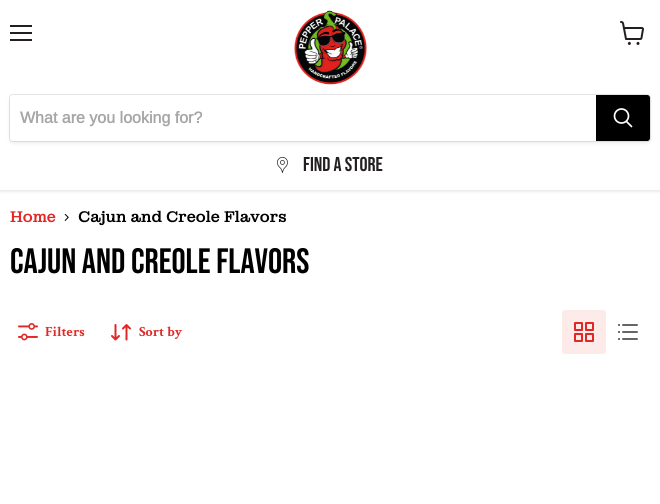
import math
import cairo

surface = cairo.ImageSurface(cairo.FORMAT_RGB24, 660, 504)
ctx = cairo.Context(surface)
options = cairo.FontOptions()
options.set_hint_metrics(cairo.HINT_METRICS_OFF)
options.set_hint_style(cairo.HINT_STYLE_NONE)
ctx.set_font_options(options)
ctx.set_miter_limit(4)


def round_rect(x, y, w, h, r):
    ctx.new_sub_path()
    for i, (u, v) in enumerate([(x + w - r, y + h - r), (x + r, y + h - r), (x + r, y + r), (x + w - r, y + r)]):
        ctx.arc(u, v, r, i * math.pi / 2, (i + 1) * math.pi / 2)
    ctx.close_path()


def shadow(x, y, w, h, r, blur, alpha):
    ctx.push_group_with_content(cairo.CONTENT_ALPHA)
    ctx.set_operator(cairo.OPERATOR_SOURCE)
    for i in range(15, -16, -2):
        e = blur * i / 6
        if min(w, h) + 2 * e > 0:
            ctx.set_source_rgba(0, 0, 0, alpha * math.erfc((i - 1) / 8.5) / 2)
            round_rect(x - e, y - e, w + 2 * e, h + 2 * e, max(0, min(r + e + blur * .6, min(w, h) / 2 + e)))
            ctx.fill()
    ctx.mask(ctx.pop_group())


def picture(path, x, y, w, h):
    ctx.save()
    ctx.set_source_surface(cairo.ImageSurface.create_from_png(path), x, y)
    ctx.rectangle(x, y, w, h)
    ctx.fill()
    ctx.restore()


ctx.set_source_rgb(1, 1, 1)
ctx.paint()
ctx.save()
ctx.rectangle(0, 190, 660, 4)
ctx.clip()
ctx.set_source_rgb(0.502, 0.502, 0.502)
shadow(0, 1, 660, 190, 0, 2, 0.25)
ctx.restore()
ctx.set_source_rgb(0.137, 0.122, 0.125)
ctx.rectangle(10, 25, 22, 2)
ctx.fill()
ctx.rectangle(10, 32, 22, 2)
ctx.fill()
ctx.rectangle(10, 39, 22, 2)
ctx.fill()
picture("img1.png", 620, 21, 24, 24)
picture("img2.png", 294, 10, 73, 75)
ctx.set_source_rgb(0.502, 0.502, 0.502)
shadow(9, 96, 642, 48, 4, 1.5, 0.11)
round_rect(9.5, 94.5, 641, 47, 3.5)
ctx.set_source_rgba(0.502, 0.502, 0.502, 0.2)
ctx.set_line_width(1)
ctx.stroke()
ctx.set_source_rgb(1, 1, 1)
ctx.new_path()
ctx.move_to(13, 95)
ctx.line_to(596, 95)
ctx.line_to(596, 141)
ctx.line_to(13, 141)
ctx.curve_to(11.5, 141, 10, 139.5, 10, 138)
ctx.line_to(10, 98)
ctx.curve_to(10, 96.5, 11.5, 95, 13, 95)
ctx.close_path()
ctx.fill()
ctx.select_font_face("Arimo", cairo.FONT_SLANT_NORMAL, cairo.FONT_WEIGHT_BOLD)
ctx.set_font_size(16)
ctx.set_source_rgb(0.655, 0.647, 0.651)
ctx.move_to(20, 123)
ctx.show_text("What are you looking for?")
ctx.set_source_rgb(0, 0, 0)
ctx.new_path()
ctx.move_to(596.5, 95.5)
ctx.line_to(647, 95.5)
ctx.curve_to(648.5, 95.5, 649.5, 96.5, 649.5, 98)
ctx.line_to(649.5, 138)
ctx.curve_to(649.5, 139.5, 648.5, 140.5, 647, 140.5)
ctx.line_to(596.5, 140.5)
ctx.close_path()
ctx.fill_preserve()
ctx.stroke()
ctx.new_path()
ctx.move_to(631.5, 126.5)
ctx.line_to(626.5, 121.5)
ctx.set_source_rgb(1, 1, 1)
ctx.set_line_width(1.7)
ctx.set_line_cap(cairo.LINE_CAP_ROUND)
ctx.stroke()
ctx.arc(621.5, 116, 7, 0, 2 * math.pi)
ctx.set_line_cap(cairo.LINE_CAP_BUTT)
ctx.stroke()
picture("img3.png", 277, 157, 11, 16)
ctx.select_font_face("Bebas Neue")
ctx.set_font_size(20)
ctx.set_source_rgb(0.137, 0.122, 0.125)
ctx.move_to(303, 171)
ctx.show_text("Find a Store")
ctx.select_font_face("Montagu Slab", cairo.FONT_SLANT_NORMAL, cairo.FONT_WEIGHT_BOLD)
ctx.set_font_size(15)
ctx.set_source_rgb(0.878, 0.161, 0.149)
ctx.move_to(10, 222)
ctx.show_text("Home")
picture("img4.png", 64, 213, 5, 8)
ctx.set_source_rgb(0, 0, 0)
ctx.move_to(78, 222)
ctx.show_text("Cajun and Creole Flavors")
ctx.select_font_face("Bebas Neue")
ctx.set_font_size(35.25)
ctx.move_to(10, 273)
ctx.show_text("CAJUN AND CREOLE FLAVORS")
picture("img5.png", 18, 323, 20, 18)
ctx.select_font_face("Crimson Text", cairo.FONT_SLANT_NORMAL, cairo.FONT_WEIGHT_BOLD)
ctx.set_font_size(14)
ctx.set_source_rgb(0.878, 0.161, 0.149)
ctx.move_to(45, 336)
ctx.show_text("Filters")
picture("img6.png", 111, 324, 20, 17)
ctx.move_to(139, 336)
ctx.show_text("Sort by")
ctx.set_source_rgb(0.988, 0.918, 0.914)
round_rect(562, 310, 44, 44, 3)
ctx.fill()
picture("img7.png", 574, 322, 20, 20)
picture("img8.png", 618, 324, 20, 16)
surface.write_to_png("page.png")
